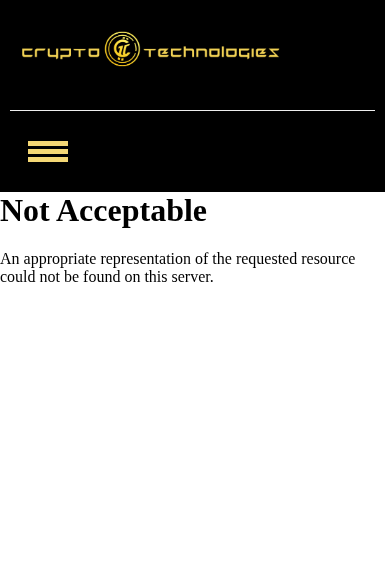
import math
import cairo

surface = cairo.ImageSurface(cairo.FORMAT_RGB24, 385, 587)
ctx = cairo.Context(surface)
options = cairo.FontOptions()
options.set_hint_metrics(cairo.HINT_METRICS_OFF)
options.set_hint_style(cairo.HINT_STYLE_NONE)
ctx.set_font_options(options)
ctx.set_miter_limit(4)


def picture(path, x, y, w, h):
    ctx.save()
    ctx.set_source_surface(cairo.ImageSurface.create_from_png(path), x, y)
    ctx.rectangle(x, y, w, h)
    ctx.fill()
    ctx.restore()


ctx.set_source_rgb(1, 1, 1)
ctx.paint()
ctx.set_source_rgb(0, 0, 0)
ctx.rectangle(0, 0, 385, 192)
ctx.fill()
ctx.set_source_rgb(0.933, 0.933, 0.933)
ctx.rectangle(10, 110, 365, 1)
ctx.fill()
picture("img1.png", 22, 31, 258, 36)
ctx.set_source_rgb(0.957, 0.843, 0.459)
ctx.rectangle(28, 141, 40, 5)
ctx.fill()
ctx.rectangle(28, 149, 40, 5)
ctx.fill()
ctx.rectangle(28, 157, 40, 5)
ctx.fill()
picture("img2.png", 0, 199, 355, 83)
surface.write_to_png("page.png")
